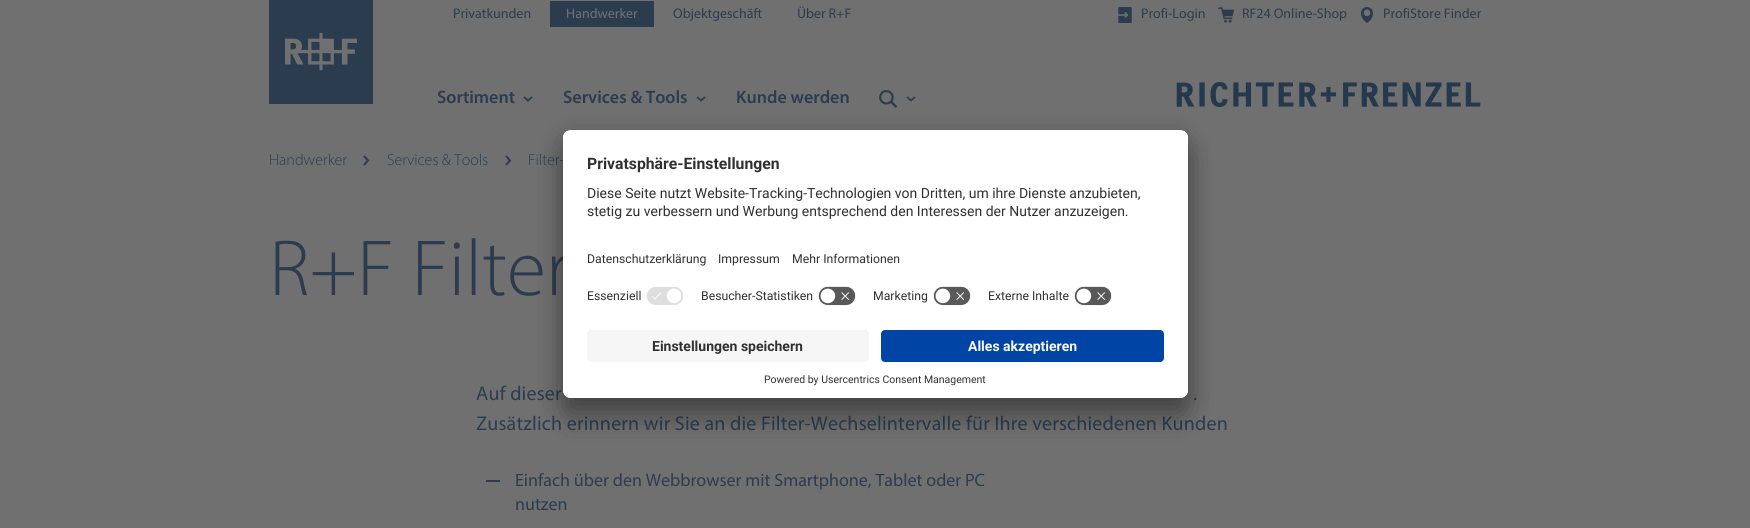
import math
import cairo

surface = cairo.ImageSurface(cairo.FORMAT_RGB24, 1750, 528)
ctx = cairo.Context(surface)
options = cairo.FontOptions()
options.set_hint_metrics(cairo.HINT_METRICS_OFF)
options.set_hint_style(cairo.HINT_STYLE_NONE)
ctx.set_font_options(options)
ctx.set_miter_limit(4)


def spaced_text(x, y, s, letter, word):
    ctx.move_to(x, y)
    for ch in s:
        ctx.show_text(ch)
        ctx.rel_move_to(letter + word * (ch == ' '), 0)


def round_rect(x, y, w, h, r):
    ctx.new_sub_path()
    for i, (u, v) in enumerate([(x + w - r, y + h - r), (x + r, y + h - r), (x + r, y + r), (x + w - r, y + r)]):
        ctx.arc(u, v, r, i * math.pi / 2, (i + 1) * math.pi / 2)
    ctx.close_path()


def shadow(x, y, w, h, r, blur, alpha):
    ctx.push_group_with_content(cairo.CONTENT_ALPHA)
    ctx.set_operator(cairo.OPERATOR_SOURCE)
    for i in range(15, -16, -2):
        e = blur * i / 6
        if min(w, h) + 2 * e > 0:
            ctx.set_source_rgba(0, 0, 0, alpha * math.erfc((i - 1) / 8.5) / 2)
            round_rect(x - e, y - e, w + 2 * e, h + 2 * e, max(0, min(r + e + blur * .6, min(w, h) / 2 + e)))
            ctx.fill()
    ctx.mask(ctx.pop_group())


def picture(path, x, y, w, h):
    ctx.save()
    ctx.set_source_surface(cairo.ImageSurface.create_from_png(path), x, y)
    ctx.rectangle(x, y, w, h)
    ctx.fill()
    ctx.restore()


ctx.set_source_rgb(0.439, 0.439, 0.439)
ctx.paint()
ctx.set_source_rgb(0.173, 0.235, 0.31)
ctx.rectangle(269, 0, 104, 104)
ctx.fill()
picture("img1.png", 285, 33, 72, 38)
ctx.select_font_face("Myriad")
ctx.set_font_size(14)
ctx.move_to(453, 18)
ctx.show_text("Privatkunden")
ctx.rectangle(550, 1, 104, 26)
ctx.fill()
ctx.set_source_rgb(0.439, 0.439, 0.439)
ctx.move_to(566, 18)
ctx.show_text("Handwerker")
ctx.set_source_rgb(0.173, 0.235, 0.31)
ctx.move_to(673, 18)
ctx.show_text("Objektgeschäft")
ctx.move_to(797, 18)
ctx.show_text("Über R+F")
picture("img2.png", 1118, 7, 14, 16)
ctx.move_to(1141, 18)
ctx.show_text("Profi-Login")
picture("img3.png", 1218, 7, 16, 16)
ctx.move_to(1242, 18)
ctx.show_text("RF24 Online-Shop")
picture("img4.png", 1361, 7, 12, 16)
ctx.move_to(1383, 18)
ctx.show_text("ProfiStore Finder")
ctx.select_font_face("Myriad SemiBold")
ctx.set_font_size(18)
ctx.move_to(437, 103)
ctx.show_text("Sortiment")
ctx.new_path()
ctx.move_to(524, 97)
ctx.line_to(528, 100.5)
ctx.line_to(532, 97)
ctx.set_line_width(1.8)
ctx.stroke()
ctx.move_to(563, 103)
ctx.show_text("Services & Tools")
ctx.new_path()
ctx.move_to(697, 97)
ctx.line_to(701, 100.5)
ctx.line_to(705, 97)
ctx.stroke()
ctx.move_to(736, 103)
ctx.show_text("Kunde werden")
picture("img5.png", 879, 90, 19, 18)
ctx.new_path()
ctx.move_to(907, 97)
ctx.line_to(911, 100.5)
ctx.line_to(915, 97)
ctx.stroke()
picture("img6.png", 1176, 82, 305, 25)
ctx.select_font_face("Myriad Light")
ctx.set_font_size(16)
ctx.move_to(269, 165)
ctx.show_text("Handwerker")
ctx.new_path()
ctx.move_to(364, 165)
ctx.line_to(368, 160.5)
ctx.line_to(364, 156)
ctx.set_line_width(2)
ctx.stroke()
ctx.move_to(387, 165)
ctx.show_text("Services & Tools")
ctx.new_path()
ctx.move_to(506, 165)
ctx.line_to(510, 160.5)
ctx.line_to(506, 156)
ctx.stroke()
ctx.move_to(528, 165)
ctx.show_text("Filter-")
ctx.set_font_size(80)
ctx.move_to(269, 295)
ctx.show_text("R+F Filter")
ctx.select_font_face("Myriad")
ctx.set_font_size(20)
spaced_text(476, 400, "Auf dieser", 0.2, 0)
spaced_text(1193, 400, ".", 0.2, 0)
spaced_text(476, 430, "Zusätzlich erinnern wir Sie an die Filter-Wechselintervalle für Ihre verschiedenen Kunden", 0.2, 0)
ctx.rectangle(486, 480, 14, 2)
ctx.fill()
ctx.set_font_size(18)
ctx.move_to(515, 486)
ctx.show_text("Einfach über den Webbrowser mit Smartphone, Tablet oder PC")
ctx.move_to(515, 510)
ctx.show_text("nutzen")
ctx.set_source_rgb(0, 0, 0)
shadow(563, 150, 625, 268, 8, 14, 0.3)
shadow(563, 135, 625, 268, 8, 13, 0.22)
ctx.set_source_rgb(1, 1, 1)
round_rect(563, 130, 625, 268, 8)
ctx.fill()
ctx.save()
round_rect(563, 130, 625, 268, 8)
ctx.clip()
ctx.new_path()
ctx.move_to(571, 130)
ctx.line_to(1180, 130)
ctx.curve_to(1184.5, 130, 1188, 133.5, 1188, 138)
ctx.line_to(1188, 322)
ctx.line_to(563, 322)
ctx.line_to(563, 138)
ctx.curve_to(563, 133.5, 566.5, 130, 571, 130)
ctx.close_path()
ctx.clip()
ctx.rectangle(563, 131, 625, 191)
ctx.fill()
ctx.rectangle(563, 131, 625, 151)
ctx.fill()
ctx.restore()
ctx.select_font_face("Roboto", cairo.FONT_SLANT_NORMAL, cairo.FONT_WEIGHT_BOLD)
ctx.set_font_size(15.75)
ctx.set_source_rgb(0.188, 0.188, 0.188)
ctx.move_to(587, 169)
ctx.show_text("Privatsphäre-Einstellungen")
ctx.select_font_face("Roboto")
ctx.set_font_size(14)
ctx.move_to(587, 198)
ctx.show_text("Diese Seite nutzt Website-Tracking-Technologien von Dritten, um ihre Dienste anzubieten,")
ctx.move_to(587, 216)
ctx.show_text("stetig zu verbessern und Werbung entsprechend den Interessen der Nutzer anzuzeigen.")
ctx.set_font_size(12.25)
ctx.move_to(587, 263)
ctx.show_text("Datenschutzerklärung")
ctx.move_to(718, 263)
ctx.show_text("Impressum")
ctx.move_to(792, 263)
ctx.show_text("Mehr Informationen")
ctx.move_to(587, 300)
ctx.show_text("Essenziell")
picture("img7.png", 646, 286, 38, 19)
ctx.move_to(701, 300)
ctx.show_text("Besucher-Statistiken")
picture("img8.png", 818, 286, 38, 20)
ctx.move_to(873, 300)
ctx.show_text("Marketing")
picture("img8.png", 933, 286, 38, 20)
ctx.move_to(988, 300)
ctx.show_text("Externe Inhalte")
picture("img8.png", 1074, 286, 38, 20)
ctx.set_source_rgb(1, 1, 1)
ctx.new_path()
ctx.move_to(563, 322)
ctx.line_to(1188, 322)
ctx.line_to(1188, 390)
ctx.curve_to(1188, 394.5, 1184.5, 398, 1180, 398)
ctx.line_to(571, 398)
ctx.curve_to(566.5, 398, 563, 394.5, 563, 390)
ctx.close_path()
ctx.fill()
ctx.set_source_rgb(0.961, 0.961, 0.961)
round_rect(587, 330, 282, 32, 4)
ctx.fill()
ctx.select_font_face("Roboto", cairo.FONT_SLANT_NORMAL, cairo.FONT_WEIGHT_BOLD)
ctx.set_font_size(14)
ctx.set_source_rgb(0.188, 0.188, 0.188)
ctx.move_to(652, 351)
ctx.show_text("Einstellungen speichern")
ctx.set_source_rgb(0, 0.271, 0.647)
round_rect(881, 330, 283, 32, 4)
ctx.fill()
ctx.set_source_rgb(0.98, 0.98, 0.98)
ctx.move_to(968, 351)
ctx.show_text("Alles akzeptieren")
ctx.select_font_face("Roboto")
ctx.set_font_size(10.5)
ctx.set_source_rgb(0.188, 0.188, 0.188)
ctx.move_to(764, 383)
ctx.show_text("Powered by Usercentrics Consent Management")
surface.write_to_png("page.png")
